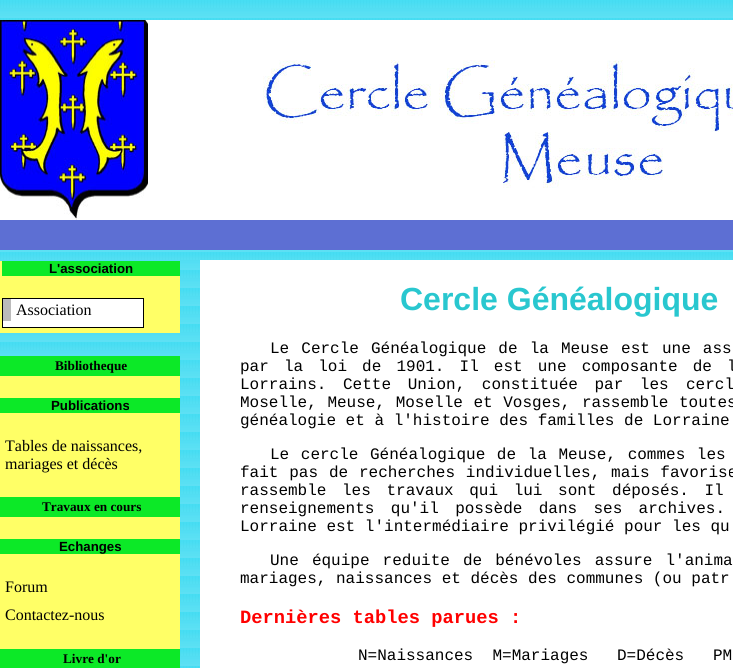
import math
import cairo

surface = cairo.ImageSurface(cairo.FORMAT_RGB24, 733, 668)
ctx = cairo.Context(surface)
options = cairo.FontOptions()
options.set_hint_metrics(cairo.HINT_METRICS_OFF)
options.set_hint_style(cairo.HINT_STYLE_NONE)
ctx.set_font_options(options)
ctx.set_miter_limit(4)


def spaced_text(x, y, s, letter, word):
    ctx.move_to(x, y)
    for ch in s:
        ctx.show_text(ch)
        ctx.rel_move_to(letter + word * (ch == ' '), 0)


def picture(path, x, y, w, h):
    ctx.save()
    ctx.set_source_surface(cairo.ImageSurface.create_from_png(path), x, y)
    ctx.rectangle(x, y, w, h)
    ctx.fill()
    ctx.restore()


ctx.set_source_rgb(1, 1, 1)
ctx.paint()
picture("img1.png", 0, 0, 733, 668)
picture("img2.png", 0, 20, 148, 200)
ctx.set_source_rgb(1, 1, 1)
ctx.rectangle(148, 20, 59, 200)
ctx.fill()
picture("img3.png", 207, 20, 526, 200)
ctx.set_source_rgb(0.365, 0.435, 0.827)
ctx.rectangle(0, 220, 733, 30)
ctx.fill()
ctx.set_source_rgb(1, 1, 0.4)
ctx.rectangle(0, 261, 180, 72)
ctx.fill()
ctx.set_source_rgb(0.047, 0.914, 0.153)
ctx.rectangle(2, 261, 178, 15)
ctx.fill()
ctx.select_font_face("Liberation Sans", cairo.FONT_SLANT_NORMAL, cairo.FONT_WEIGHT_BOLD)
ctx.set_font_size(13.25)
ctx.set_source_rgb(0, 0, 0)
ctx.move_to(49, 273)
ctx.show_text("L'association")
ctx.set_source_rgb(1, 1, 1)
ctx.rectangle(3, 299, 140, 28)
ctx.fill()
ctx.set_source_rgb(0, 0, 0)
ctx.rectangle(2, 298, 142, 1)
ctx.fill()
ctx.rectangle(143, 298, 1, 30)
ctx.fill()
ctx.rectangle(2, 298, 1, 30)
ctx.fill()
ctx.rectangle(3, 327, 140, 1)
ctx.fill()
ctx.set_source_rgb(0.733, 0.733, 0.733)
ctx.rectangle(3, 299, 8, 22)
ctx.fill()
ctx.select_font_face("Liberation Serif")
ctx.set_font_size(16)
ctx.set_source_rgb(0, 0, 0)
ctx.move_to(16, 315)
ctx.show_text("Association")
ctx.set_source_rgb(1, 1, 0.4)
ctx.rectangle(0, 376, 180, 273)
ctx.fill()
ctx.set_source_rgb(0.047, 0.914, 0.153)
ctx.rectangle(0, 356, 180, 20)
ctx.fill()
ctx.select_font_face("Liberation Serif", cairo.FONT_SLANT_NORMAL, cairo.FONT_WEIGHT_BOLD)
ctx.set_font_size(13.25)
ctx.set_source_rgb(0, 0, 0)
ctx.move_to(55, 370)
ctx.show_text("Bibliotheque")
ctx.set_source_rgb(0.047, 0.914, 0.153)
ctx.rectangle(0, 398, 180, 15)
ctx.fill()
ctx.select_font_face("Liberation Sans", cairo.FONT_SLANT_NORMAL, cairo.FONT_WEIGHT_BOLD)
ctx.set_source_rgb(0, 0, 0)
ctx.move_to(51, 410)
ctx.show_text("Publications")
ctx.select_font_face("Liberation Serif")
ctx.set_font_size(16)
ctx.move_to(5, 451)
ctx.show_text("Tables de naissances,")
ctx.move_to(5, 469)
ctx.show_text("mariages et décès")
ctx.set_source_rgb(0.047, 0.914, 0.153)
ctx.rectangle(0, 497, 180, 20)
ctx.fill()
ctx.select_font_face("Liberation Serif", cairo.FONT_SLANT_NORMAL, cairo.FONT_WEIGHT_BOLD)
ctx.set_font_size(13.25)
ctx.set_source_rgb(0, 0, 0)
ctx.move_to(42, 511)
ctx.show_text("Travaux en cours")
ctx.set_source_rgb(0.047, 0.914, 0.153)
ctx.rectangle(0, 539, 180, 15)
ctx.fill()
ctx.select_font_face("Liberation Sans", cairo.FONT_SLANT_NORMAL, cairo.FONT_WEIGHT_BOLD)
ctx.set_source_rgb(0, 0, 0)
ctx.move_to(59, 551)
ctx.show_text("Echanges")
ctx.select_font_face("Liberation Serif")
ctx.set_font_size(16)
ctx.move_to(5, 592)
ctx.show_text("Forum")
ctx.move_to(5, 620)
ctx.show_text("Contactez-nous")
ctx.set_source_rgb(0.047, 0.914, 0.153)
ctx.rectangle(0, 649, 180, 19)
ctx.fill()
ctx.select_font_face("Liberation Serif", cairo.FONT_SLANT_NORMAL, cairo.FONT_WEIGHT_BOLD)
ctx.set_font_size(13.25)
ctx.set_source_rgb(0, 0, 0)
ctx.move_to(63, 663)
ctx.show_text("Livre d'or")
ctx.set_source_rgb(1, 1, 1)
ctx.rectangle(200, 260, 533, 408)
ctx.fill()
ctx.select_font_face("Liberation Sans", cairo.FONT_SLANT_NORMAL, cairo.FONT_WEIGHT_BOLD)
ctx.set_font_size(32)
ctx.set_source_rgb(0.161, 0.78, 0.812)
ctx.move_to(400, 310)
ctx.show_text("Cercle Généalogique")
ctx.select_font_face("Liberation Mono")
ctx.set_font_size(16)
ctx.set_source_rgb(0, 0, 0)
spaced_text(270, 353, "Le Cercle Généalogique de la Meuse est une ass", 0, 2.5)
spaced_text(240, 371, "par la loi de 1901. Il est une composante de l", 0, 5.5)
spaced_text(240, 389, "Lorrains. Cette Union, constituée par les", 0, 7)
spaced_text(686, 389, "cercl", 0, 7)
spaced_text(240, 407, "Moselle, Meuse, Moselle et Vosges,", 0, 1)
spaced_text(582, 407, "rassemble toutes", 0, 1)
ctx.move_to(240, 425)
ctx.show_text("généalogie et à l'histoire des familles de Lorraine")
spaced_text(270, 459, "Le cercle Généalogique de la Meuse, commes les", 0, 2)
spaced_text(240, 477, "fait pas de recherches individuelles, mais favorise", 0, 1.25)
spaced_text(240, 495, "rassemble les travaux qui lui sont déposés. Il", 0, 6)
spaced_text(240, 513, "renseignements qu'il possède dans ses archives.", 0, 6.75)
ctx.move_to(240, 531)
ctx.show_text("Lorraine est l'intermédiaire privilégié pour les qu")
spaced_text(270, 565, "Une équipe reduite de bénévoles assure l'anima", 0, 3.5)
ctx.move_to(240, 583)
ctx.show_text("mariages, naissances et décès des communes (ou patr")
ctx.select_font_face("Liberation Mono", cairo.FONT_SLANT_NORMAL, cairo.FONT_WEIGHT_BOLD)
ctx.set_font_size(18.75)
ctx.set_source_rgb(1, 0, 0)
ctx.move_to(240, 623)
ctx.show_text("Dernières tables parues :")
ctx.select_font_face("Liberation Mono")
ctx.set_font_size(16)
ctx.set_source_rgb(0, 0, 0)
ctx.move_to(358, 660)
ctx.show_text("N=Naissances  M=Mariages")
ctx.move_to(617, 660)
ctx.show_text("D=Décès   PM")
surface.write_to_png("page.png")
